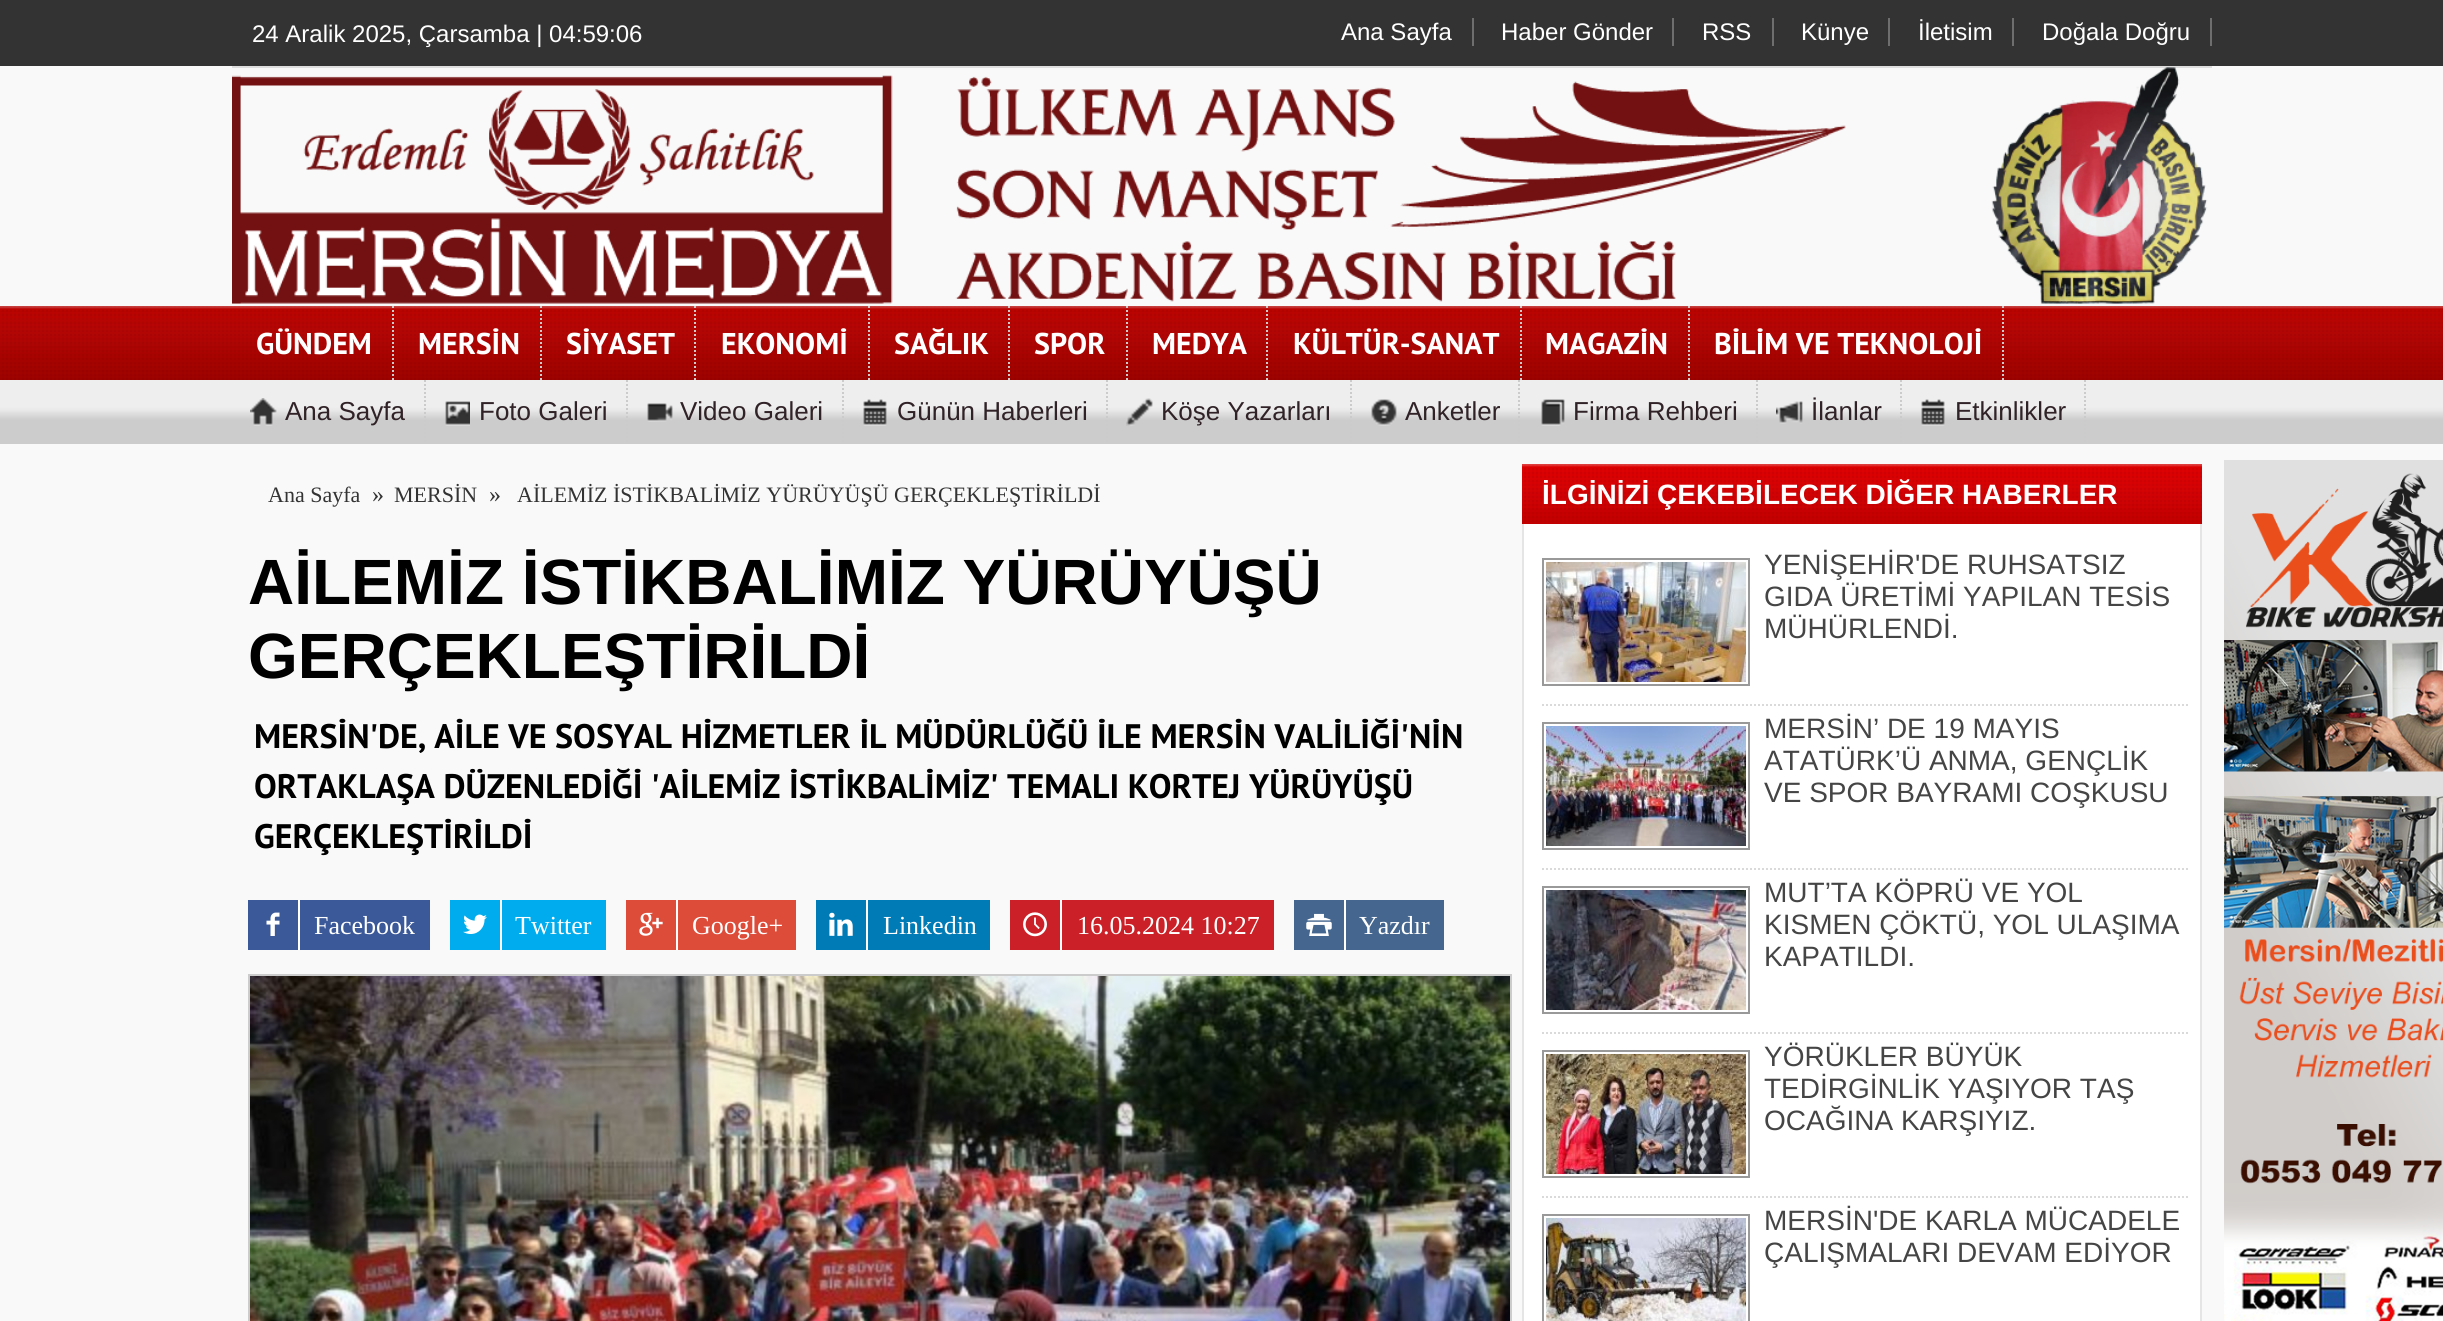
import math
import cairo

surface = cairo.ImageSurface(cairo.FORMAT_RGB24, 2443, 1321)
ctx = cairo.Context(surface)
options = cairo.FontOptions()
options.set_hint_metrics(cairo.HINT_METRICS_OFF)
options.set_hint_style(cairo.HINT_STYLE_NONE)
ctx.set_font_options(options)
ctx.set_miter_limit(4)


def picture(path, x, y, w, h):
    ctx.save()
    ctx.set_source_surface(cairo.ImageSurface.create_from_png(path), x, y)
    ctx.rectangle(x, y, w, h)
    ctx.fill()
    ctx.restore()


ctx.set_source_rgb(0.973, 0.973, 0.973)
ctx.paint()
ctx.set_source_rgb(0.2, 0.2, 0.2)
ctx.rectangle(0, 0, 2443, 66)
ctx.fill()
ctx.set_source_rgb(0.871, 0.871, 0.871)
ctx.rectangle(232, 66, 1980, 2)
ctx.fill()
ctx.select_font_face("Liberation Sans")
ctx.set_font_size(24)
ctx.set_source_rgb(1, 1, 1)
ctx.move_to(252, 42)
ctx.show_text("24 Aralik 2025, Çarsamba | 04:59:06")
ctx.move_to(1341, 40)
ctx.show_text("Ana Sayfa")
ctx.set_source_rgb(0.431, 0.431, 0.431)
ctx.rectangle(1472, 18, 2, 28)
ctx.fill()
ctx.set_source_rgb(1, 1, 1)
ctx.move_to(1501, 40)
ctx.show_text("Haber Gönder")
ctx.set_source_rgb(0.431, 0.431, 0.431)
ctx.rectangle(1672, 18, 2, 28)
ctx.fill()
ctx.set_source_rgb(1, 1, 1)
ctx.move_to(1702, 40)
ctx.show_text("RSS")
ctx.set_source_rgb(0.431, 0.431, 0.431)
ctx.rectangle(1772, 18, 2, 28)
ctx.fill()
ctx.set_source_rgb(1, 1, 1)
ctx.move_to(1801, 40)
ctx.show_text("Künye")
ctx.set_source_rgb(0.431, 0.431, 0.431)
ctx.rectangle(1888, 18, 2, 28)
ctx.fill()
ctx.set_source_rgb(1, 1, 1)
ctx.move_to(1918, 40)
ctx.show_text("İletisim")
ctx.set_source_rgb(0.431, 0.431, 0.431)
ctx.rectangle(2012, 18, 2, 28)
ctx.fill()
ctx.set_source_rgb(1, 1, 1)
ctx.move_to(2042, 40)
ctx.show_text("Doğala Doğru")
ctx.set_source_rgb(0.431, 0.431, 0.431)
ctx.rectangle(2210, 18, 2, 28)
ctx.fill()
picture("img1.png", 232, 67, 1976, 237)
ctx.set_source_rgb(0.741, 0.012, 0)
ctx.rectangle(0, 306, 2443, 74)
ctx.fill()
picture("img2.png", 0, 306, 2443, 74)
ctx.new_path()
ctx.move_to(393, 306)
ctx.line_to(393, 380)
ctx.set_source_rgb(0.796, 0.796, 0.796)
ctx.set_dash([2, 2])
ctx.stroke()
ctx.select_font_face("PT Sans", cairo.FONT_SLANT_NORMAL, cairo.FONT_WEIGHT_BOLD)
ctx.set_font_size(30)
ctx.set_source_rgb(1, 1, 1)
ctx.move_to(256, 354)
ctx.show_text("GÜNDEM")
ctx.new_path()
ctx.move_to(541, 306)
ctx.line_to(541, 380)
ctx.set_source_rgb(0.796, 0.796, 0.796)
ctx.stroke()
ctx.set_source_rgb(1, 1, 1)
ctx.move_to(418, 354)
ctx.show_text("MERSİN")
ctx.new_path()
ctx.move_to(695, 306)
ctx.line_to(695, 380)
ctx.set_source_rgb(0.796, 0.796, 0.796)
ctx.stroke()
ctx.set_source_rgb(1, 1, 1)
ctx.move_to(566, 354)
ctx.show_text("SİYASET")
ctx.new_path()
ctx.move_to(869, 306)
ctx.line_to(869, 380)
ctx.set_source_rgb(0.796, 0.796, 0.796)
ctx.stroke()
ctx.set_source_rgb(1, 1, 1)
ctx.move_to(721, 354)
ctx.show_text("EKONOMİ")
ctx.new_path()
ctx.move_to(1009, 306)
ctx.line_to(1009, 380)
ctx.set_source_rgb(0.796, 0.796, 0.796)
ctx.stroke()
ctx.set_source_rgb(1, 1, 1)
ctx.move_to(894, 354)
ctx.show_text("SAĞLIK")
ctx.new_path()
ctx.move_to(1127, 306)
ctx.line_to(1127, 380)
ctx.set_source_rgb(0.796, 0.796, 0.796)
ctx.stroke()
ctx.set_source_rgb(1, 1, 1)
ctx.move_to(1034, 354)
ctx.show_text("SPOR")
ctx.new_path()
ctx.move_to(1267, 306)
ctx.line_to(1267, 380)
ctx.set_source_rgb(0.796, 0.796, 0.796)
ctx.stroke()
ctx.set_source_rgb(1, 1, 1)
ctx.move_to(1152, 354)
ctx.show_text("MEDYA")
ctx.new_path()
ctx.move_to(1521, 306)
ctx.line_to(1521, 380)
ctx.set_source_rgb(0.796, 0.796, 0.796)
ctx.stroke()
ctx.set_source_rgb(1, 1, 1)
ctx.move_to(1293, 354)
ctx.show_text("KÜLTÜR-SANAT")
ctx.new_path()
ctx.move_to(1689, 306)
ctx.line_to(1689, 380)
ctx.set_source_rgb(0.796, 0.796, 0.796)
ctx.stroke()
ctx.set_source_rgb(1, 1, 1)
ctx.move_to(1545, 354)
ctx.show_text("MAGAZİN")
ctx.new_path()
ctx.move_to(2003, 306)
ctx.line_to(2003, 380)
ctx.set_source_rgb(0.796, 0.796, 0.796)
ctx.stroke()
ctx.set_source_rgb(1, 1, 1)
ctx.move_to(1714, 354)
ctx.show_text("BİLİM VE TEKNOLOJİ")
picture("img3.png", 0, 380, 2443, 64)
ctx.new_path()
ctx.move_to(425, 380)
ctx.line_to(425, 444)
ctx.set_source_rgb(0.796, 0.796, 0.796)
ctx.stroke()
picture("img4.png", 250, 398, 27, 28)
ctx.select_font_face("Liberation Sans")
ctx.set_font_size(26)
ctx.set_source_rgb(0.188, 0.133, 0.149)
ctx.move_to(285, 420)
ctx.show_text("Ana Sayfa")
ctx.new_path()
ctx.move_to(627, 380)
ctx.line_to(627, 444)
ctx.set_source_rgb(0.796, 0.796, 0.796)
ctx.stroke()
picture("img5.png", 445, 401, 25, 25)
ctx.set_source_rgb(0.188, 0.133, 0.149)
ctx.move_to(479, 420)
ctx.show_text("Foto Galeri")
ctx.new_path()
ctx.move_to(843, 380)
ctx.line_to(843, 444)
ctx.set_source_rgb(0.796, 0.796, 0.796)
ctx.stroke()
picture("img6.png", 647, 403, 26, 19)
ctx.set_source_rgb(0.188, 0.133, 0.149)
ctx.move_to(680, 420)
ctx.show_text("Video Galeri")
ctx.new_path()
ctx.move_to(1107, 380)
ctx.line_to(1107, 444)
ctx.set_source_rgb(0.796, 0.796, 0.796)
ctx.stroke()
picture("img7.png", 863, 399, 24, 27)
ctx.set_source_rgb(0.188, 0.133, 0.149)
ctx.move_to(897, 420)
ctx.show_text("Günün Haberleri")
ctx.new_path()
ctx.move_to(1351, 380)
ctx.line_to(1351, 444)
ctx.set_source_rgb(0.796, 0.796, 0.796)
ctx.stroke()
picture("img8.png", 1126, 398, 27, 28)
ctx.set_source_rgb(0.188, 0.133, 0.149)
ctx.move_to(1161, 420)
ctx.show_text("Köşe Yazarları")
ctx.new_path()
ctx.move_to(1519, 380)
ctx.line_to(1519, 444)
ctx.set_source_rgb(0.796, 0.796, 0.796)
ctx.stroke()
picture("img9.png", 1371, 399, 26, 27)
ctx.set_source_rgb(0.188, 0.133, 0.149)
ctx.move_to(1405, 420)
ctx.show_text("Anketler")
ctx.new_path()
ctx.move_to(1757, 380)
ctx.line_to(1757, 444)
ctx.set_source_rgb(0.796, 0.796, 0.796)
ctx.stroke()
picture("img10.png", 1541, 399, 24, 27)
ctx.set_source_rgb(0.188, 0.133, 0.149)
ctx.move_to(1573, 420)
ctx.show_text("Firma Rehberi")
ctx.new_path()
ctx.move_to(1901, 380)
ctx.line_to(1901, 444)
ctx.set_source_rgb(0.796, 0.796, 0.796)
ctx.stroke()
picture("img11.png", 1776, 401, 27, 23)
ctx.set_source_rgb(0.188, 0.133, 0.149)
ctx.move_to(1811, 420)
ctx.show_text("İlanlar")
ctx.new_path()
ctx.move_to(2085, 380)
ctx.line_to(2085, 444)
ctx.set_source_rgb(0.796, 0.796, 0.796)
ctx.stroke()
picture("img7.png", 1921, 399, 24, 27)
ctx.set_source_rgb(0.188, 0.133, 0.149)
ctx.move_to(1955, 420)
ctx.show_text("Etkinlikler")
ctx.select_font_face("Liberation Serif")
ctx.set_font_size(22)
ctx.set_source_rgb(0.2, 0.2, 0.2)
ctx.move_to(268, 502)
ctx.show_text("Ana Sayfa")
ctx.set_font_size(24)
ctx.move_to(372, 502)
ctx.show_text("»")
ctx.set_font_size(22)
ctx.move_to(394, 502)
ctx.show_text("MERSİN")
ctx.set_font_size(24)
ctx.move_to(489, 502)
ctx.show_text("»")
ctx.set_font_size(22)
ctx.move_to(517, 502)
ctx.show_text("AİLEMİZ İSTİKBALİMİZ YÜRÜYÜŞÜ GERÇEKLEŞTİRİLDİ")
ctx.select_font_face("Liberation Sans", cairo.FONT_SLANT_NORMAL, cairo.FONT_WEIGHT_BOLD)
ctx.set_font_size(64)
ctx.set_source_rgb(0, 0, 0)
ctx.move_to(248, 604)
ctx.show_text("AİLEMİZ İSTİKBALİMİZ YÜRÜYÜŞÜ")
ctx.move_to(248, 678)
ctx.show_text("GERÇEKLEŞTİRİLDİ")
ctx.select_font_face("PT Sans", cairo.FONT_SLANT_NORMAL, cairo.FONT_WEIGHT_BOLD)
ctx.set_font_size(34)
ctx.move_to(254, 748)
ctx.show_text("MERSİN'DE, AİLE VE SOSYAL HİZMETLER İL MÜDÜRLÜĞÜ İLE MERSİN VALİLİĞİ'NİN")
ctx.move_to(254, 798)
ctx.show_text("ORTAKLAŞA DÜZENLEDİĞİ 'AİLEMİZ İSTİKBALİMİZ' TEMALI KORTEJ YÜRÜYÜŞÜ")
ctx.move_to(254, 848)
ctx.show_text("GERÇEKLEŞTİRİLDİ")
ctx.set_source_rgb(0.231, 0.349, 0.596)
ctx.rectangle(248, 900, 182, 50)
ctx.fill()
ctx.set_source_rgb(1, 1, 1)
ctx.rectangle(298, 900, 2, 50)
ctx.fill()
picture("img12.png", 266, 912, 14, 24)
ctx.select_font_face("Liberation Serif")
ctx.set_font_size(26)
ctx.move_to(314, 934)
ctx.show_text("Facebook")
ctx.set_source_rgb(0, 0.675, 0.929)
ctx.rectangle(450, 900, 156, 50)
ctx.fill()
ctx.set_source_rgb(1, 1, 1)
ctx.rectangle(500, 900, 2, 50)
ctx.fill()
picture("img13.png", 463, 914, 24, 20)
ctx.move_to(515, 934)
ctx.show_text("Twitter")
ctx.set_source_rgb(0.867, 0.294, 0.224)
ctx.rectangle(626, 900, 170, 50)
ctx.fill()
ctx.set_source_rgb(1, 1, 1)
ctx.rectangle(676, 900, 2, 50)
ctx.fill()
picture("img14.png", 639, 912, 24, 24)
ctx.move_to(692, 934)
ctx.show_text("Google+")
ctx.set_source_rgb(0, 0.482, 0.714)
ctx.rectangle(816, 900, 174, 50)
ctx.fill()
ctx.set_source_rgb(1, 1, 1)
ctx.rectangle(866, 900, 2, 50)
ctx.fill()
picture("img15.png", 829, 912, 24, 24)
ctx.move_to(883, 934)
ctx.show_text("Linkedin")
ctx.set_source_rgb(0.796, 0.125, 0.153)
ctx.rectangle(1010, 900, 264, 50)
ctx.fill()
ctx.set_source_rgb(1, 1, 1)
ctx.rectangle(1060, 900, 2, 50)
ctx.fill()
picture("img16.png", 1023, 912, 24, 25)
ctx.move_to(1077, 934)
ctx.show_text("16.05.2024 10:27")
ctx.set_source_rgb(0.271, 0.4, 0.557)
ctx.rectangle(1294, 900, 150, 50)
ctx.fill()
ctx.set_source_rgb(1, 1, 1)
ctx.rectangle(1344, 900, 2, 50)
ctx.fill()
picture("img17.png", 1306, 913, 26, 23)
ctx.move_to(1359, 934)
ctx.show_text("Yazdır")
ctx.rectangle(249, 975, 1262, 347)
ctx.set_source_rgb(0.8, 0.8, 0.8)
ctx.set_dash([])
ctx.stroke()
picture("img18.png", 250, 976, 1260, 345)
ctx.set_source_rgb(0.878, 0, 0)
ctx.rectangle(1522, 464, 680, 60)
ctx.fill()
picture("img19.png", 1522, 464, 680, 60)
ctx.select_font_face("Liberation Sans", cairo.FONT_SLANT_NORMAL, cairo.FONT_WEIGHT_BOLD)
ctx.set_font_size(28)
ctx.set_source_rgb(1, 1, 1)
ctx.move_to(1542, 504)
ctx.show_text("İLGİNİZİ ÇEKEBİLECEK DİĞER HABERLER")
ctx.rectangle(1524, 524, 676, 797)
ctx.fill()
ctx.set_source_rgb(0.898, 0.898, 0.898)
ctx.rectangle(2200, 524, 2, 797)
ctx.fill()
ctx.rectangle(1522, 524, 2, 797)
ctx.fill()
ctx.save()
ctx.rectangle(1534, 534, 656, 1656)
ctx.clip()
ctx.new_path()
ctx.move_to(1542, 705)
ctx.line_to(2192, 705)
ctx.set_source_rgb(0.855, 0.855, 0.855)
ctx.set_dash([2, 2])
ctx.stroke()
ctx.restore()
ctx.rectangle(1543, 559, 206, 126)
ctx.set_source_rgb(0.6, 0.6, 0.6)
ctx.stroke()
picture("img20.png", 1546, 562, 200, 120)
ctx.select_font_face("Liberation Sans")
ctx.set_source_rgb(0.271, 0.271, 0.271)
ctx.move_to(1764, 574)
ctx.show_text("YENİŞEHİR'DE RUHSATSIZ")
ctx.move_to(1764, 606)
ctx.show_text("GIDA ÜRETİMİ YAPILAN TESİS")
ctx.move_to(1764, 638)
ctx.show_text("MÜHÜRLENDİ.")
ctx.save()
ctx.rectangle(1534, 534, 656, 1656)
ctx.clip()
ctx.new_path()
ctx.move_to(1542, 869)
ctx.line_to(2192, 869)
ctx.set_source_rgb(0.855, 0.855, 0.855)
ctx.set_dash([2, 2])
ctx.stroke()
ctx.restore()
ctx.rectangle(1543, 723, 206, 126)
ctx.set_source_rgb(0.6, 0.6, 0.6)
ctx.stroke()
picture("img21.png", 1546, 726, 200, 120)
ctx.set_source_rgb(0.271, 0.271, 0.271)
ctx.move_to(1764, 738)
ctx.show_text("MERSİN’ DE 19 MAYIS")
ctx.move_to(1764, 770)
ctx.show_text("ATATÜRK’Ü ANMA, GENÇLİK")
ctx.move_to(1764, 802)
ctx.show_text("VE SPOR BAYRAMI COŞKUSU")
ctx.save()
ctx.rectangle(1534, 534, 656, 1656)
ctx.clip()
ctx.new_path()
ctx.move_to(1542, 1033)
ctx.line_to(2192, 1033)
ctx.set_source_rgb(0.855, 0.855, 0.855)
ctx.set_dash([2, 2])
ctx.stroke()
ctx.restore()
ctx.rectangle(1543, 887, 206, 126)
ctx.set_source_rgb(0.6, 0.6, 0.6)
ctx.stroke()
picture("img22.png", 1546, 890, 200, 120)
ctx.set_source_rgb(0.271, 0.271, 0.271)
ctx.move_to(1764, 902)
ctx.show_text("MUT’TA KÖPRÜ VE YOL")
ctx.move_to(1764, 934)
ctx.show_text("KISMEN ÇÖKTÜ, YOL ULAŞIMA")
ctx.move_to(1764, 966)
ctx.show_text("KAPATILDI.")
ctx.save()
ctx.rectangle(1534, 534, 656, 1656)
ctx.clip()
ctx.new_path()
ctx.move_to(1542, 1197)
ctx.line_to(2192, 1197)
ctx.set_source_rgb(0.855, 0.855, 0.855)
ctx.set_dash([2, 2])
ctx.stroke()
ctx.restore()
ctx.rectangle(1543, 1051, 206, 126)
ctx.set_source_rgb(0.6, 0.6, 0.6)
ctx.stroke()
picture("img23.png", 1546, 1054, 200, 120)
ctx.set_source_rgb(0.271, 0.271, 0.271)
ctx.move_to(1764, 1066)
ctx.show_text("YÖRÜKLER BÜYÜK")
ctx.move_to(1764, 1098)
ctx.show_text("TEDİRGİNLİK YAŞIYOR TAŞ")
ctx.move_to(1764, 1130)
ctx.show_text("OCAĞINA KARŞIYIZ.")
ctx.rectangle(1543, 1215, 206, 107)
ctx.set_source_rgb(0.6, 0.6, 0.6)
ctx.stroke()
picture("img24.png", 1546, 1218, 200, 103)
ctx.set_source_rgb(0.271, 0.271, 0.271)
ctx.move_to(1764, 1230)
ctx.show_text("MERSİN'DE KARLA MÜCADELE")
ctx.move_to(1764, 1262)
ctx.show_text("ÇALIŞMALARI DEVAM EDİYOR")
picture("img25.png", 2224, 460, 219, 861)
surface.write_to_png("page.png")
